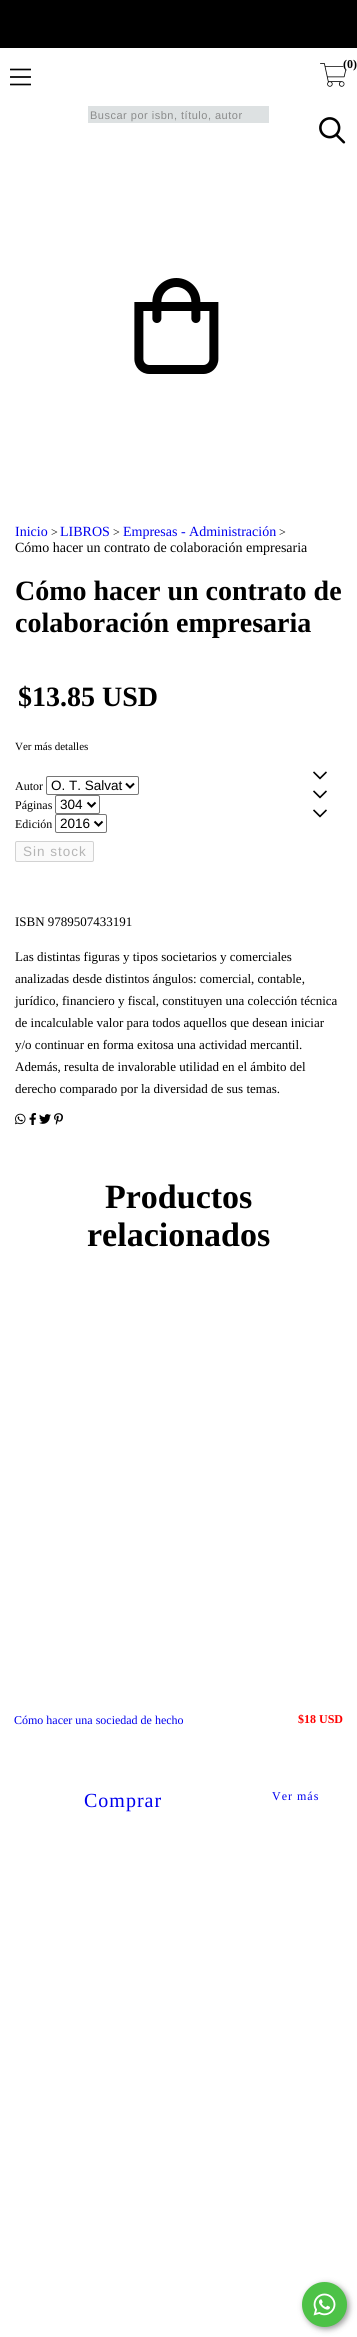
import math
import cairo

surface = cairo.ImageSurface(cairo.FORMAT_RGB24, 357, 2337)
ctx = cairo.Context(surface)
options = cairo.FontOptions()
options.set_hint_metrics(cairo.HINT_METRICS_OFF)
options.set_hint_style(cairo.HINT_STYLE_NONE)
ctx.set_font_options(options)
ctx.set_miter_limit(4)


def spaced_text(x, y, s, letter, word):
    ctx.move_to(x, y)
    for ch in s:
        ctx.show_text(ch)
        ctx.rel_move_to(letter + word * (ch == ' '), 0)


def round_rect(x, y, w, h, r):
    ctx.new_sub_path()
    for i, (u, v) in enumerate([(x + w - r, y + h - r), (x + r, y + h - r), (x + r, y + r), (x + w - r, y + r)]):
        ctx.arc(u, v, r, i * math.pi / 2, (i + 1) * math.pi / 2)
    ctx.close_path()


def shadow(x, y, w, h, r, blur, alpha):
    ctx.push_group_with_content(cairo.CONTENT_ALPHA)
    ctx.set_operator(cairo.OPERATOR_SOURCE)
    for i in range(15, -16, -2):
        e = blur * i / 6
        if min(w, h) + 2 * e > 0:
            ctx.set_source_rgba(0, 0, 0, alpha * math.erfc((i - 1) / 8.5) / 2)
            round_rect(x - e, y - e, w + 2 * e, h + 2 * e, max(0, min(r + e + blur * .6, min(w, h) / 2 + e)))
            ctx.fill()
    ctx.mask(ctx.pop_group())


def picture(path, x, y, w, h):
    ctx.save()
    ctx.set_source_surface(cairo.ImageSurface.create_from_png(path), x, y)
    ctx.rectangle(x, y, w, h)
    ctx.fill()
    ctx.restore()


ctx.set_source_rgb(1, 1, 1)
ctx.paint()
ctx.set_source_rgb(0, 0, 0)
ctx.rectangle(0, 0, 357, 48)
ctx.fill()
picture("img1.png", 320, 63, 27, 24)
ctx.set_source_rgb(1, 1, 1)
round_rect(343, 58, 14, 13, 6.5)
ctx.fill()
ctx.select_font_face("Liberation Serif", cairo.FONT_SLANT_NORMAL, cairo.FONT_WEIGHT_BOLD)
ctx.set_font_size(12)
ctx.set_source_rgb(0, 0, 0)
ctx.move_to(343, 68)
ctx.show_text("(0)")
picture("img2.png", 10, 68, 21, 18)
ctx.set_source_rgb(0.867, 0.882, 0.886)
ctx.rectangle(88, 106, 181, 17)
ctx.fill()
ctx.select_font_face("Liberation Sans")
ctx.set_font_size(11)
ctx.set_source_rgb(0.541, 0.545, 0.545)
spaced_text(90, 119, "Buscar por isbn, título, autor", 0.5, 0)
picture("img3.png", 319, 117, 27, 27)
picture("img4.png", 134, 278, 85, 96)
ctx.select_font_face("Liberation Serif")
ctx.set_font_size(14)
ctx.set_source_rgb(0, 0, 0.933)
ctx.move_to(15, 536)
ctx.show_text("Inicio")
ctx.set_font_size(12)
ctx.set_source_rgb(0, 0, 0)
ctx.move_to(51, 536)
ctx.show_text(">")
ctx.set_font_size(14)
ctx.set_source_rgb(0, 0, 0.933)
ctx.move_to(60, 536)
ctx.show_text("LIBROS")
ctx.set_font_size(12)
ctx.set_source_rgb(0, 0, 0)
ctx.move_to(113, 536)
ctx.show_text(">")
ctx.set_font_size(14)
ctx.set_source_rgb(0, 0, 0.933)
ctx.move_to(123, 536)
ctx.show_text("Empresas - Administración")
ctx.set_font_size(12)
ctx.set_source_rgb(0, 0, 0)
ctx.move_to(279, 536)
ctx.show_text(">")
ctx.set_font_size(14)
ctx.move_to(15, 552)
ctx.show_text("Cómo hacer un contrato de colaboración empresaria")
ctx.select_font_face("Liberation Serif", cairo.FONT_SLANT_NORMAL, cairo.FONT_WEIGHT_BOLD)
ctx.set_font_size(28)
ctx.move_to(15, 600)
ctx.show_text("Cómo hacer un contrato de")
ctx.move_to(15, 632)
ctx.show_text("colaboración empresaria")
ctx.move_to(18, 706)
ctx.show_text("$13.85 USD")
ctx.select_font_face("Liberation Serif")
ctx.set_font_size(11)
ctx.move_to(15, 750)
ctx.show_text("Ver más detalles")
picture("img5.png", 313, 771, 14, 9)
ctx.set_font_size(12)
ctx.move_to(15, 790)
ctx.show_text("Autor")
round_rect(46.5, 776.5, 92, 18, 1.5)
ctx.set_source_rgb(0.463, 0.463, 0.463)
ctx.set_line_width(1)
ctx.stroke()
ctx.new_path()
ctx.move_to(126, 783.5)
ctx.line_to(130, 787.5)
ctx.line_to(134, 783.5)
ctx.set_source_rgb(0, 0, 0)
ctx.set_line_width(2)
ctx.stroke()
ctx.select_font_face("Liberation Sans")
ctx.set_font_size(13.5)
ctx.move_to(51, 790)
ctx.show_text("O. T. Salvat")
picture("img5.png", 313, 790, 14, 9)
ctx.select_font_face("Liberation Serif")
ctx.set_font_size(12)
ctx.move_to(15, 809)
ctx.show_text("Páginas")
round_rect(55.5, 795.5, 44, 18, 1.5)
ctx.set_source_rgb(0.463, 0.463, 0.463)
ctx.set_line_width(1)
ctx.stroke()
ctx.new_path()
ctx.move_to(87.5, 802.5)
ctx.line_to(91.5, 806.5)
ctx.line_to(95.5, 802.5)
ctx.set_source_rgb(0, 0, 0)
ctx.set_line_width(2)
ctx.stroke()
ctx.select_font_face("Liberation Sans")
ctx.set_font_size(13.5)
ctx.move_to(60, 809)
ctx.show_text("304")
picture("img5.png", 313, 809, 14, 9)
ctx.select_font_face("Liberation Serif")
ctx.set_font_size(12)
ctx.move_to(15, 828)
ctx.show_text("Edición")
round_rect(55.5, 814.5, 51, 18, 1.5)
ctx.set_source_rgb(0.463, 0.463, 0.463)
ctx.set_line_width(1)
ctx.stroke()
ctx.new_path()
ctx.move_to(94.5, 821.5)
ctx.line_to(98.5, 825.5)
ctx.line_to(102.5, 821.5)
ctx.set_source_rgb(0, 0, 0)
ctx.set_line_width(2)
ctx.stroke()
ctx.select_font_face("Liberation Sans")
ctx.set_font_size(13.5)
ctx.move_to(60, 828)
ctx.show_text("2016")
ctx.set_source_rgb(0.98, 0.98, 0.98)
round_rect(15.5, 841.5, 78, 20, 1.5)
ctx.fill_preserve()
ctx.set_source_rgb(0.824, 0.824, 0.824)
ctx.set_line_width(1)
ctx.stroke()
ctx.set_source_rgb(0.706, 0.706, 0.706)
spaced_text(23, 856, "Sin stock", 1, 0)
ctx.select_font_face("Liberation Serif")
ctx.set_font_size(13)
ctx.set_source_rgb(0, 0, 0)
ctx.move_to(15, 926)
ctx.show_text("ISBN 9789507433191")
ctx.move_to(15, 961)
ctx.show_text("Las distintas figuras y tipos societarios y comerciales")
ctx.move_to(15, 983)
ctx.show_text("analizadas desde distintos ángulos: comercial, contable,")
ctx.move_to(15, 1005)
ctx.show_text("jurídico, financiero y fiscal, constituyen una colección técnica")
ctx.move_to(15, 1027)
ctx.show_text("de incalculable valor para todos aquellos que desean iniciar")
ctx.move_to(15, 1049)
ctx.show_text("y/o continuar en forma exitosa una actividad mercantil.")
ctx.move_to(15, 1071)
ctx.show_text("Además, resulta de invalorable utilidad en el ámbito del")
ctx.move_to(15, 1093)
ctx.show_text("derecho comparado por la diversidad de sus temas.")
picture("img6.png", 15, 1113, 11, 12)
picture("img7.png", 29, 1113, 7, 12)
picture("img8.png", 39, 1114, 12, 10)
picture("img9.png", 54, 1113, 9, 12)
ctx.select_font_face("Liberation Serif", cairo.FONT_SLANT_NORMAL, cairo.FONT_WEIGHT_BOLD)
ctx.set_font_size(34)
ctx.move_to(105, 1208)
ctx.show_text("Productos")
ctx.move_to(87, 1246)
ctx.show_text("relacionados")
ctx.select_font_face("Liberation Serif")
ctx.set_font_size(12)
ctx.set_source_rgb(0, 0, 0.933)
ctx.move_to(14, 1724)
ctx.show_text("Cómo hacer una sociedad de hecho")
ctx.select_font_face("Liberation Serif", cairo.FONT_SLANT_NORMAL, cairo.FONT_WEIGHT_BOLD)
ctx.set_source_rgb(1, 0, 0)
ctx.move_to(298, 1723)
ctx.show_text("$18 USD")
ctx.select_font_face("Liberation Serif")
ctx.set_font_size(20)
ctx.set_source_rgb(0, 0, 0.933)
spaced_text(84, 1807, "Comprar", 1, 0)
ctx.set_font_size(12)
spaced_text(272, 1800, "Ver más", 1, 0)
ctx.set_source_rgb(0, 0, 0)
shadow(304, 2284, 45, 45, 22.5, 3, 0.4)
ctx.set_source_rgb(0.302, 0.761, 0.278)
ctx.arc(324.5, 2304.5, 22.5, 0, 2 * math.pi)
ctx.fill()
picture("img10.png", 313, 2293, 23, 23)
surface.write_to_png("page.png")
